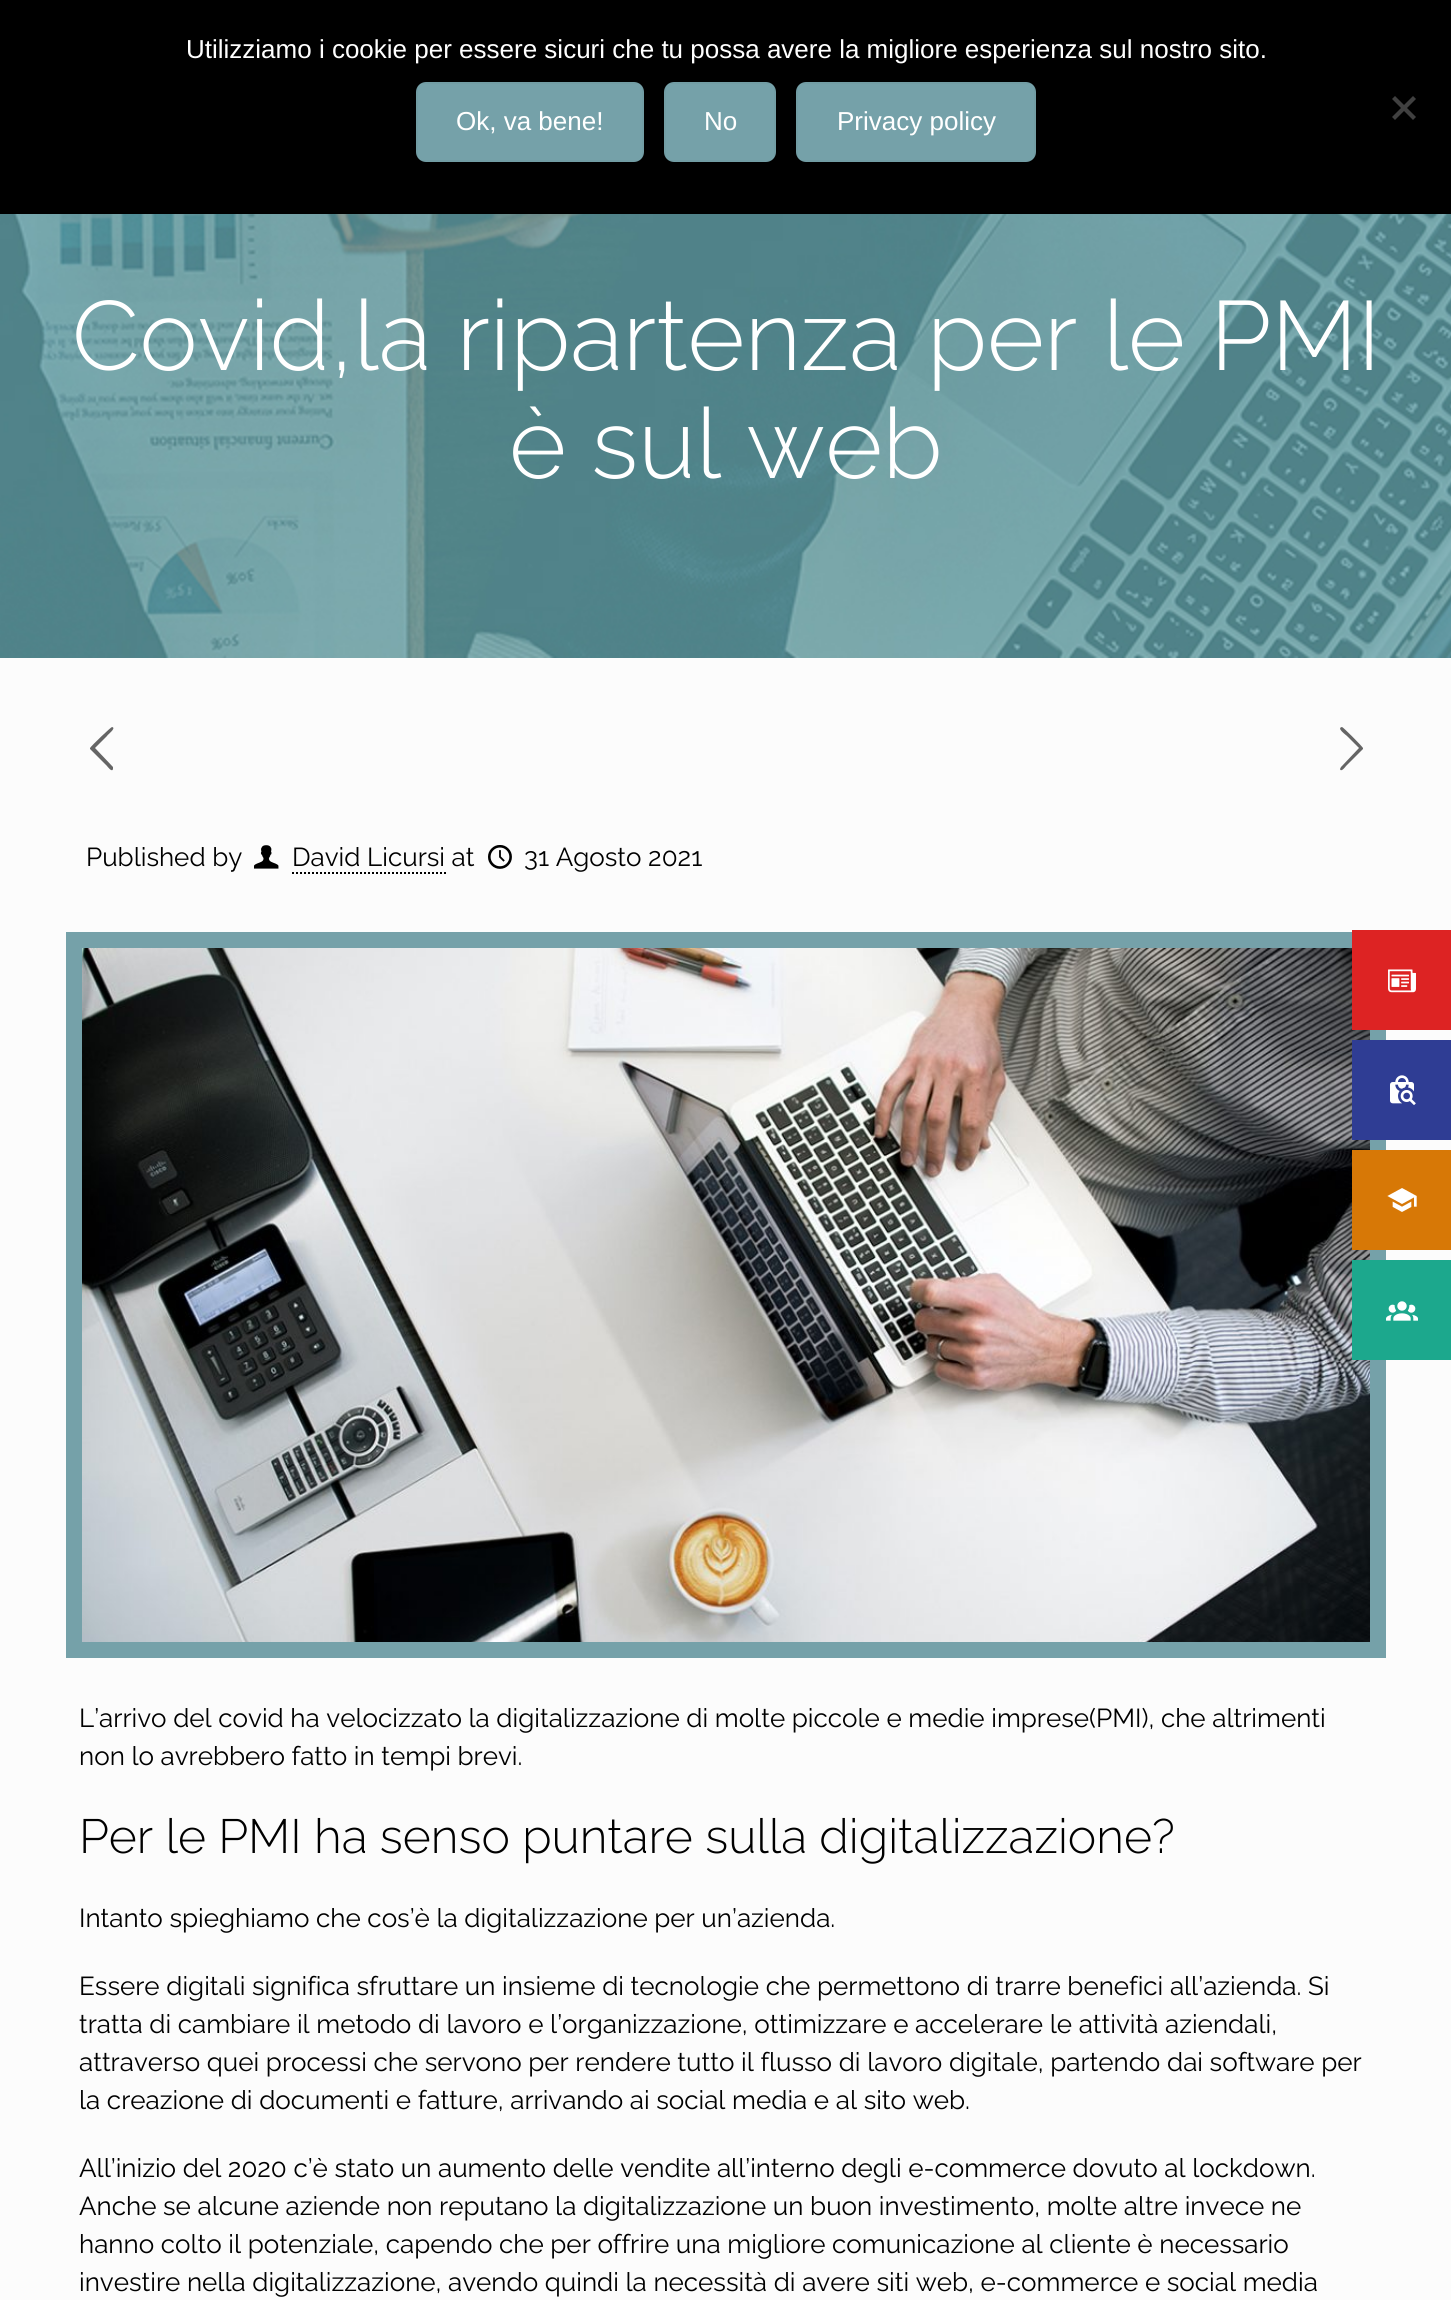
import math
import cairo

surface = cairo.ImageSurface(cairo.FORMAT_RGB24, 1451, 2300)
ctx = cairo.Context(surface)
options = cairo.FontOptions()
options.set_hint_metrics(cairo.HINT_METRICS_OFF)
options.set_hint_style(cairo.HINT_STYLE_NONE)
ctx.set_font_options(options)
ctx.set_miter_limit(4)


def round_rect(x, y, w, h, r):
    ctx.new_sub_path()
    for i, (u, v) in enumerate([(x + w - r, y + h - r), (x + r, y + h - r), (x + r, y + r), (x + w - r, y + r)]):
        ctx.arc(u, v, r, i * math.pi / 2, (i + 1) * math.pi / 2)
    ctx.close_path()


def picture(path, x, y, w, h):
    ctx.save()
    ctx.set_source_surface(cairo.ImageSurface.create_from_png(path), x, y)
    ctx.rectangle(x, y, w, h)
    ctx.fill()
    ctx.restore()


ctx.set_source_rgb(0.988, 0.988, 0.988)
ctx.paint()
ctx.set_source_rgb(0, 0, 0)
ctx.rectangle(0, 0, 1451, 214)
ctx.fill()
ctx.select_font_face("Liberation Sans")
ctx.set_font_size(26)
ctx.set_source_rgb(1, 1, 1)
ctx.move_to(186, 58)
ctx.show_text("Utilizziamo i cookie per essere sicuri che tu possa avere la migliore esperienza sul nostro sito.")
ctx.set_source_rgb(0.251, 0.251, 0.251)
ctx.new_path()
ctx.move_to(1413, 96)
ctx.line_to(1416, 99)
ctx.line_to(1395, 120)
ctx.line_to(1392, 117)
ctx.close_path()
ctx.fill()
ctx.new_path()
ctx.move_to(1392, 99)
ctx.line_to(1395, 96)
ctx.line_to(1416, 117)
ctx.line_to(1413, 120)
ctx.close_path()
ctx.fill()
ctx.set_source_rgb(0.459, 0.631, 0.663)
round_rect(416, 82, 228, 80, 10)
ctx.fill()
ctx.rectangle(417, 83, 226, 78)
ctx.set_source_rgba(0, 0, 0, 0.03)
ctx.stroke()
ctx.set_source_rgb(1, 1, 1)
ctx.move_to(456, 130)
ctx.show_text("Ok, va bene!")
ctx.set_source_rgb(0.459, 0.631, 0.663)
round_rect(664, 82, 112, 80, 10)
ctx.fill()
ctx.rectangle(665, 83, 110, 78)
ctx.set_source_rgba(0, 0, 0, 0.03)
ctx.stroke()
ctx.set_source_rgb(1, 1, 1)
ctx.move_to(704, 130)
ctx.show_text("No")
ctx.set_source_rgb(0.459, 0.631, 0.663)
round_rect(796, 82, 240, 80, 10)
ctx.fill()
ctx.rectangle(797, 83, 238, 78)
ctx.set_source_rgba(0, 0, 0, 0.03)
ctx.stroke()
ctx.set_source_rgb(1, 1, 1)
ctx.move_to(837, 130)
ctx.show_text("Privacy policy")
picture("img1.png", 0, 214, 1451, 444)
ctx.select_font_face("Raleway Light")
ctx.set_font_size(98)
ctx.move_to(72, 370)
ctx.show_text("Covid,la ripartenza per le PMI")
ctx.move_to(509, 478)
ctx.show_text("è sul web")
ctx.set_source_rgb(0.396, 0.396, 0.396)
ctx.new_path()
ctx.move_to(113, 767)
ctx.line_to(113, 769)
ctx.curve_to(112, 773, 107, 766, 107, 766)
ctx.line_to(90, 749)
ctx.line_to(90, 748)
ctx.curve_to(92, 745, 111, 727, 112, 727)
ctx.curve_to(117, 728, 107, 735, 107, 736)
ctx.line_to(95, 748)
ctx.close_path()
ctx.fill()
ctx.new_path()
ctx.move_to(1341, 767)
ctx.line_to(1359, 748)
ctx.line_to(1347, 736)
ctx.curve_to(1346, 735, 1336, 728, 1342, 727)
ctx.curve_to(1343, 727, 1361, 745, 1363, 748)
ctx.line_to(1363, 749)
ctx.line_to(1346, 766)
ctx.curve_to(1346, 766, 1341, 773, 1340, 769)
ctx.close_path()
ctx.fill()
ctx.select_font_face("Raleway")
ctx.set_font_size(26)
ctx.set_source_rgb(0, 0, 0)
ctx.move_to(86, 866)
ctx.show_text("Published by")
picture("img2.png", 254, 845, 25, 24)
ctx.move_to(292, 866)
ctx.show_text("David Licursi at")
ctx.new_path()
ctx.move_to(292, 873)
ctx.line_to(446, 873)
ctx.set_dash([2, 2])
ctx.stroke()
picture("img3.png", 488, 845, 24, 24)
ctx.move_to(524, 866)
ctx.show_text("31 Agosto 2021")
ctx.rectangle(74, 940, 1304, 710)
ctx.set_source_rgb(0.459, 0.631, 0.663)
ctx.set_line_width(16)
ctx.set_dash([])
ctx.stroke()
picture("img4.png", 82, 948, 1288, 694)
ctx.set_source_rgb(0, 0, 0)
ctx.move_to(79, 1727)
ctx.show_text("L’arrivo del covid ha velocizzato la digitalizzazione di molte piccole e medie imprese(PMI), che altrimenti")
ctx.move_to(79, 1765)
ctx.show_text("non lo avrebbero fatto in tempi brevi.")
ctx.select_font_face("Raleway Light")
ctx.set_font_size(48)
ctx.move_to(79, 1853)
ctx.show_text("Per le PMI ha senso puntare sulla digitalizzazione?")
ctx.select_font_face("Raleway")
ctx.set_font_size(26)
ctx.move_to(79, 1927)
ctx.show_text("Intanto spieghiamo che cos’è la digitalizzazione per un’azienda.")
ctx.move_to(79, 1995)
ctx.show_text("Essere digitali significa sfruttare un insieme di tecnologie che permettono di trarre benefici all’azienda. Si")
ctx.move_to(79, 2033)
ctx.show_text("tratta di cambiare il metodo di lavoro e l’organizzazione, ottimizzare e accelerare le attività aziendali,")
ctx.move_to(79, 2071)
ctx.show_text("attraverso quei processi che servono per rendere tutto il flusso di lavoro digitale, partendo dai software per")
ctx.move_to(79, 2109)
ctx.show_text("la creazione di documenti e fatture, arrivando ai social media e al sito web.")
ctx.move_to(79, 2177)
ctx.show_text("All’inizio del 2020 c’è stato un aumento delle vendite all’interno degli e-commerce dovuto al lockdown.")
ctx.move_to(79, 2215)
ctx.show_text("Anche se alcune aziende non reputano la digitalizzazione un buon investimento, molte altre invece ne")
ctx.move_to(79, 2253)
ctx.show_text("hanno colto il potenziale, capendo che per offrire una migliore comunicazione al cliente è necessario")
ctx.move_to(79, 2291)
ctx.show_text("investire nella digitalizzazione, avendo quindi la necessità di avere siti web, e-commerce e social media")
ctx.set_source_rgb(0.867, 0.137, 0.137)
ctx.rectangle(1352, 930, 99, 100)
ctx.fill()
picture("img5.png", 1388, 969, 28, 24)
ctx.set_source_rgb(0.184, 0.239, 0.58)
ctx.rectangle(1352, 1040, 99, 100)
ctx.fill()
picture("img6.png", 1390, 1075, 26, 30)
ctx.set_source_rgb(0.843, 0.471, 0.024)
ctx.rectangle(1352, 1150, 99, 100)
ctx.fill()
picture("img7.png", 1387, 1188, 30, 24)
ctx.set_source_rgb(0.11, 0.659, 0.553)
ctx.rectangle(1352, 1260, 99, 100)
ctx.fill()
picture("img8.png", 1386, 1301, 32, 20)
surface.write_to_png("page.png")
